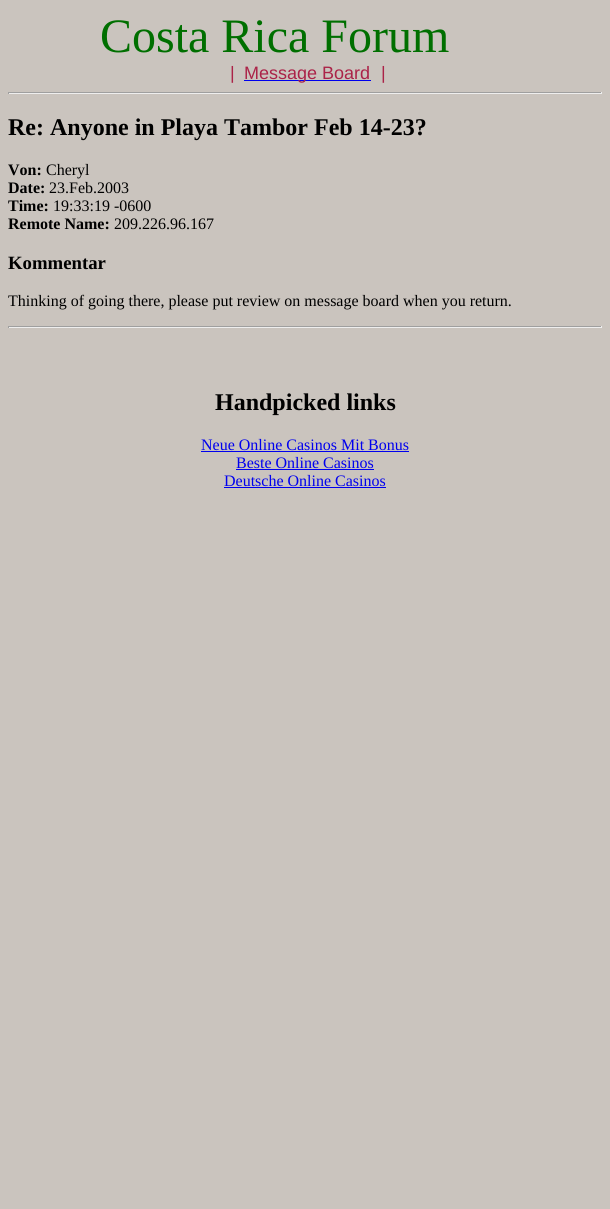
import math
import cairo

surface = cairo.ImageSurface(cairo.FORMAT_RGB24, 610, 1209)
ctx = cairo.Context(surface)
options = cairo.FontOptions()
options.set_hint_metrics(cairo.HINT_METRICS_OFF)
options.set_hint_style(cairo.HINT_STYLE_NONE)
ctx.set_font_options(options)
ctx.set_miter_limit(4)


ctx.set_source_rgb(0.792, 0.769, 0.745)
ctx.paint()
ctx.select_font_face("Liberation Serif")
ctx.set_font_size(48)
ctx.set_source_rgb(0, 0.435, 0)
ctx.move_to(100, 52)
ctx.show_text("Costa Rica Forum")
ctx.select_font_face("Liberation Sans")
ctx.set_font_size(18)
ctx.set_source_rgb(0.671, 0.137, 0.282)
ctx.move_to(230, 79)
ctx.show_text("|")
ctx.set_source_rgb(0, 0, 0.933)
ctx.rectangle(244, 80, 127, 1)
ctx.fill()
ctx.set_source_rgb(0.671, 0.137, 0.282)
ctx.move_to(244, 79)
ctx.show_text("Message Board")
ctx.move_to(381, 79)
ctx.show_text("|")
ctx.set_source_rgb(0.624, 0.624, 0.624)
ctx.rectangle(8, 92, 594, 1)
ctx.fill()
ctx.set_source_rgb(0.933, 0.933, 0.933)
ctx.rectangle(601, 92, 1, 2)
ctx.fill()
ctx.rectangle(8, 93, 594, 1)
ctx.fill()
ctx.set_source_rgb(0.624, 0.624, 0.624)
ctx.rectangle(8, 92, 1, 2)
ctx.fill()
ctx.select_font_face("Liberation Serif", cairo.FONT_SLANT_NORMAL, cairo.FONT_WEIGHT_BOLD)
ctx.set_font_size(24)
ctx.set_source_rgb(0, 0, 0)
ctx.move_to(8, 135)
ctx.show_text("Re: Anyone in Playa Tambor Feb 14-23?")
ctx.set_font_size(16)
ctx.move_to(8, 175)
ctx.show_text("Von:")
ctx.select_font_face("Liberation Serif")
ctx.move_to(46, 175)
ctx.show_text("Cheryl")
ctx.select_font_face("Liberation Serif", cairo.FONT_SLANT_NORMAL, cairo.FONT_WEIGHT_BOLD)
ctx.move_to(8, 193)
ctx.show_text("Date:")
ctx.select_font_face("Liberation Serif")
ctx.move_to(49, 193)
ctx.show_text("23.Feb.2003")
ctx.select_font_face("Liberation Serif", cairo.FONT_SLANT_NORMAL, cairo.FONT_WEIGHT_BOLD)
ctx.move_to(8, 211)
ctx.show_text("Time:")
ctx.select_font_face("Liberation Serif")
ctx.move_to(53, 211)
ctx.show_text("19:33:19 -0600")
ctx.select_font_face("Liberation Serif", cairo.FONT_SLANT_NORMAL, cairo.FONT_WEIGHT_BOLD)
ctx.move_to(8, 229)
ctx.show_text("Remote Name:")
ctx.select_font_face("Liberation Serif")
ctx.move_to(114, 229)
ctx.show_text("209.226.96.167")
ctx.select_font_face("Liberation Serif", cairo.FONT_SLANT_NORMAL, cairo.FONT_WEIGHT_BOLD)
ctx.set_font_size(18.75)
ctx.move_to(8, 269)
ctx.show_text("Kommentar")
ctx.select_font_face("Liberation Serif")
ctx.set_font_size(16)
ctx.move_to(8, 306)
ctx.show_text("Thinking of going there, please put review on message board when you return.")
ctx.set_source_rgb(0.624, 0.624, 0.624)
ctx.rectangle(8, 326, 594, 1)
ctx.fill()
ctx.set_source_rgb(0.933, 0.933, 0.933)
ctx.rectangle(601, 326, 1, 2)
ctx.fill()
ctx.rectangle(8, 327, 594, 1)
ctx.fill()
ctx.set_source_rgb(0.624, 0.624, 0.624)
ctx.rectangle(8, 326, 1, 2)
ctx.fill()
ctx.select_font_face("Liberation Serif", cairo.FONT_SLANT_NORMAL, cairo.FONT_WEIGHT_BOLD)
ctx.set_font_size(24)
ctx.set_source_rgb(0, 0, 0)
ctx.move_to(215, 410)
ctx.show_text("Handpicked links")
ctx.select_font_face("Liberation Serif")
ctx.set_font_size(16)
ctx.set_source_rgb(0, 0, 0.933)
ctx.move_to(201, 450)
ctx.show_text("Neue Online Casinos Mit Bonus")
ctx.rectangle(201, 451, 208, 1)
ctx.fill()
ctx.move_to(236, 468)
ctx.show_text("Beste Online Casinos")
ctx.rectangle(236, 469, 138, 1)
ctx.fill()
ctx.move_to(224, 486)
ctx.show_text("Deutsche Online Casinos")
ctx.rectangle(224, 487, 162, 1)
ctx.fill()
surface.write_to_png("page.png")
